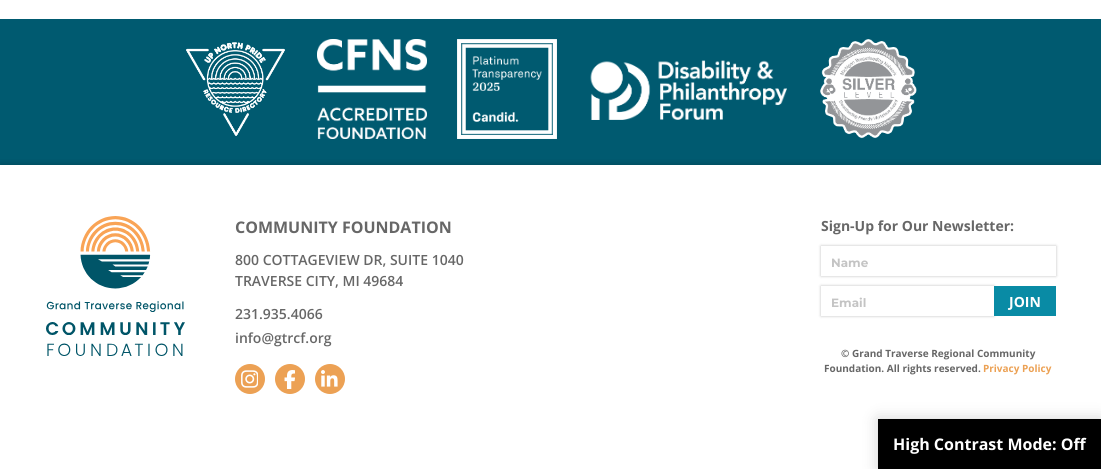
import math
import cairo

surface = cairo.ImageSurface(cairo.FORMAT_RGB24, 1101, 469)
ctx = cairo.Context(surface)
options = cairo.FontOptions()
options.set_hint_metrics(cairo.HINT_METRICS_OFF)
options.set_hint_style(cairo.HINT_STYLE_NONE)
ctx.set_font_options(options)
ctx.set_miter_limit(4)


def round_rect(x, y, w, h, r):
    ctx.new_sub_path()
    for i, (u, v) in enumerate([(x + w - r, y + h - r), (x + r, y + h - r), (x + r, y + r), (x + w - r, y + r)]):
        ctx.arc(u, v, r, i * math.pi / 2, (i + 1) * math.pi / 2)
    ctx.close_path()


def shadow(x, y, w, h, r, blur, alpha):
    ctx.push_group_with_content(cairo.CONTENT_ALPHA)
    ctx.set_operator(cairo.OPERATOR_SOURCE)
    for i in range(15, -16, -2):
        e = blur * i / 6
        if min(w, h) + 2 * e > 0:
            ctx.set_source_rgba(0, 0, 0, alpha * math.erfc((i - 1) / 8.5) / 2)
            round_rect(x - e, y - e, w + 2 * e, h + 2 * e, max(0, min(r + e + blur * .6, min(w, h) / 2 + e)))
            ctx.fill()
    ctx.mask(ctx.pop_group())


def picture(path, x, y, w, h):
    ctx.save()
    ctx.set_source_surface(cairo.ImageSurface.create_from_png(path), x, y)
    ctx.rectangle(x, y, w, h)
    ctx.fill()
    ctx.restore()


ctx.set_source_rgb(1, 1, 1)
ctx.paint()
ctx.set_source_rgb(0, 0.353, 0.439)
ctx.rectangle(0, 19, 1101, 146)
ctx.fill()
picture("img1.png", 186, 42, 99, 94)
picture("img2.png", 317, 39, 110, 100)
picture("img3.png", 457, 39, 100, 100)
picture("img4.png", 590, 60, 197, 60)
picture("img5.png", 820, 39, 97, 100)
ctx.save()
ctx.rectangle(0, 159, 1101, 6)
ctx.clip()
ctx.set_source_rgb(0, 0, 0)
shadow(0, 165, 1101, 304, 0, 4, 0.25)
ctx.restore()
picture("img6.png", 46, 216, 139, 140)
ctx.select_font_face("Open Sans", cairo.FONT_SLANT_NORMAL, cairo.FONT_WEIGHT_BOLD)
ctx.set_font_size(16)
ctx.set_source_rgb(0.404, 0.404, 0.404)
ctx.move_to(235, 233)
ctx.show_text("COMMUNITY FOUNDATION")
ctx.select_font_face("Open Sans SemiBold")
ctx.set_font_size(14)
ctx.move_to(235, 265)
ctx.show_text("800 COTTAGEVIEW DR, SUITE 1040")
ctx.move_to(235, 286)
ctx.show_text("TRAVERSE CITY, MI 49684")
ctx.move_to(235, 319)
ctx.show_text("231.935.4066")
ctx.move_to(235, 343)
ctx.show_text("info@gtrcf.org")
ctx.set_source_rgb(0.925, 0.631, 0.329)
ctx.new_path()
ctx.arc(250, 379, 15, 0, 2 * math.pi)
ctx.fill()
picture("img7.png", 241, 370, 17, 18)
ctx.arc(290, 379, 15, 0, 2 * math.pi)
ctx.fill()
picture("img8.png", 284, 370, 11, 19)
ctx.arc(330, 379, 15, 0, 2 * math.pi)
ctx.fill()
picture("img9.png", 321, 370, 17, 17)
ctx.select_font_face("Open Sans", cairo.FONT_SLANT_NORMAL, cairo.FONT_WEIGHT_BOLD)
ctx.set_source_rgb(0.404, 0.404, 0.404)
ctx.move_to(821, 231)
ctx.show_text("Sign-Up for Our Newsletter:")
ctx.save()
ctx.set_fill_rule(cairo.FILL_RULE_EVEN_ODD)
ctx.new_path()
ctx.move_to(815, 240)
ctx.line_to(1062, 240)
ctx.line_to(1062, 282)
ctx.line_to(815, 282)
ctx.close_path()
ctx.move_to(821, 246)
ctx.line_to(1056, 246)
ctx.line_to(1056, 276)
ctx.line_to(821, 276)
ctx.close_path()
ctx.clip()
ctx.set_source_rgb(0, 0, 0)
shadow(821, 246, 235, 30, 0, 1.5, 0.25)
ctx.restore()
ctx.select_font_face("Montserrat", cairo.FONT_SLANT_NORMAL, cairo.FONT_WEIGHT_BOLD)
ctx.set_font_size(12)
ctx.set_source_rgb(0.769, 0.769, 0.769)
ctx.move_to(831, 267)
ctx.show_text("Name")
ctx.save()
ctx.set_fill_rule(cairo.FILL_RULE_EVEN_ODD)
ctx.new_path()
ctx.move_to(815, 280)
ctx.line_to(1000, 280)
ctx.line_to(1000, 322)
ctx.line_to(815, 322)
ctx.close_path()
ctx.move_to(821, 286)
ctx.line_to(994, 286)
ctx.line_to(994, 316)
ctx.line_to(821, 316)
ctx.close_path()
ctx.clip()
ctx.set_source_rgb(0, 0, 0)
shadow(821, 286, 173, 30, 0, 1.5, 0.25)
ctx.restore()
ctx.move_to(831, 307)
ctx.show_text("Email")
ctx.set_source_rgb(0.039, 0.545, 0.647)
ctx.rectangle(994, 286, 62, 30)
ctx.fill()
ctx.select_font_face("Open Sans", cairo.FONT_SLANT_NORMAL, cairo.FONT_WEIGHT_BOLD)
ctx.set_font_size(14)
ctx.set_source_rgb(1, 1, 1)
ctx.move_to(1009, 307)
ctx.show_text("JOIN")
ctx.set_font_size(10)
ctx.set_source_rgb(0.404, 0.404, 0.404)
ctx.move_to(841, 357)
ctx.show_text("© Grand Traverse Regional Community")
ctx.move_to(824, 372)
ctx.show_text("Foundation. All rights reserved.")
ctx.set_source_rgb(0.925, 0.631, 0.329)
ctx.move_to(983, 372)
ctx.show_text("Privacy Policy")
ctx.set_source_rgb(0.659, 0.659, 0.659)
shadow(878, 419, 223, 50, 0, 7.5, 0.5)
ctx.set_source_rgb(0, 0, 0)
ctx.rectangle(878, 419, 223, 50)
ctx.fill()
ctx.set_font_size(16)
ctx.set_source_rgb(1, 1, 1)
ctx.move_to(893, 450)
ctx.show_text("High Contrast Mode: Off")
surface.write_to_png("page.png")
